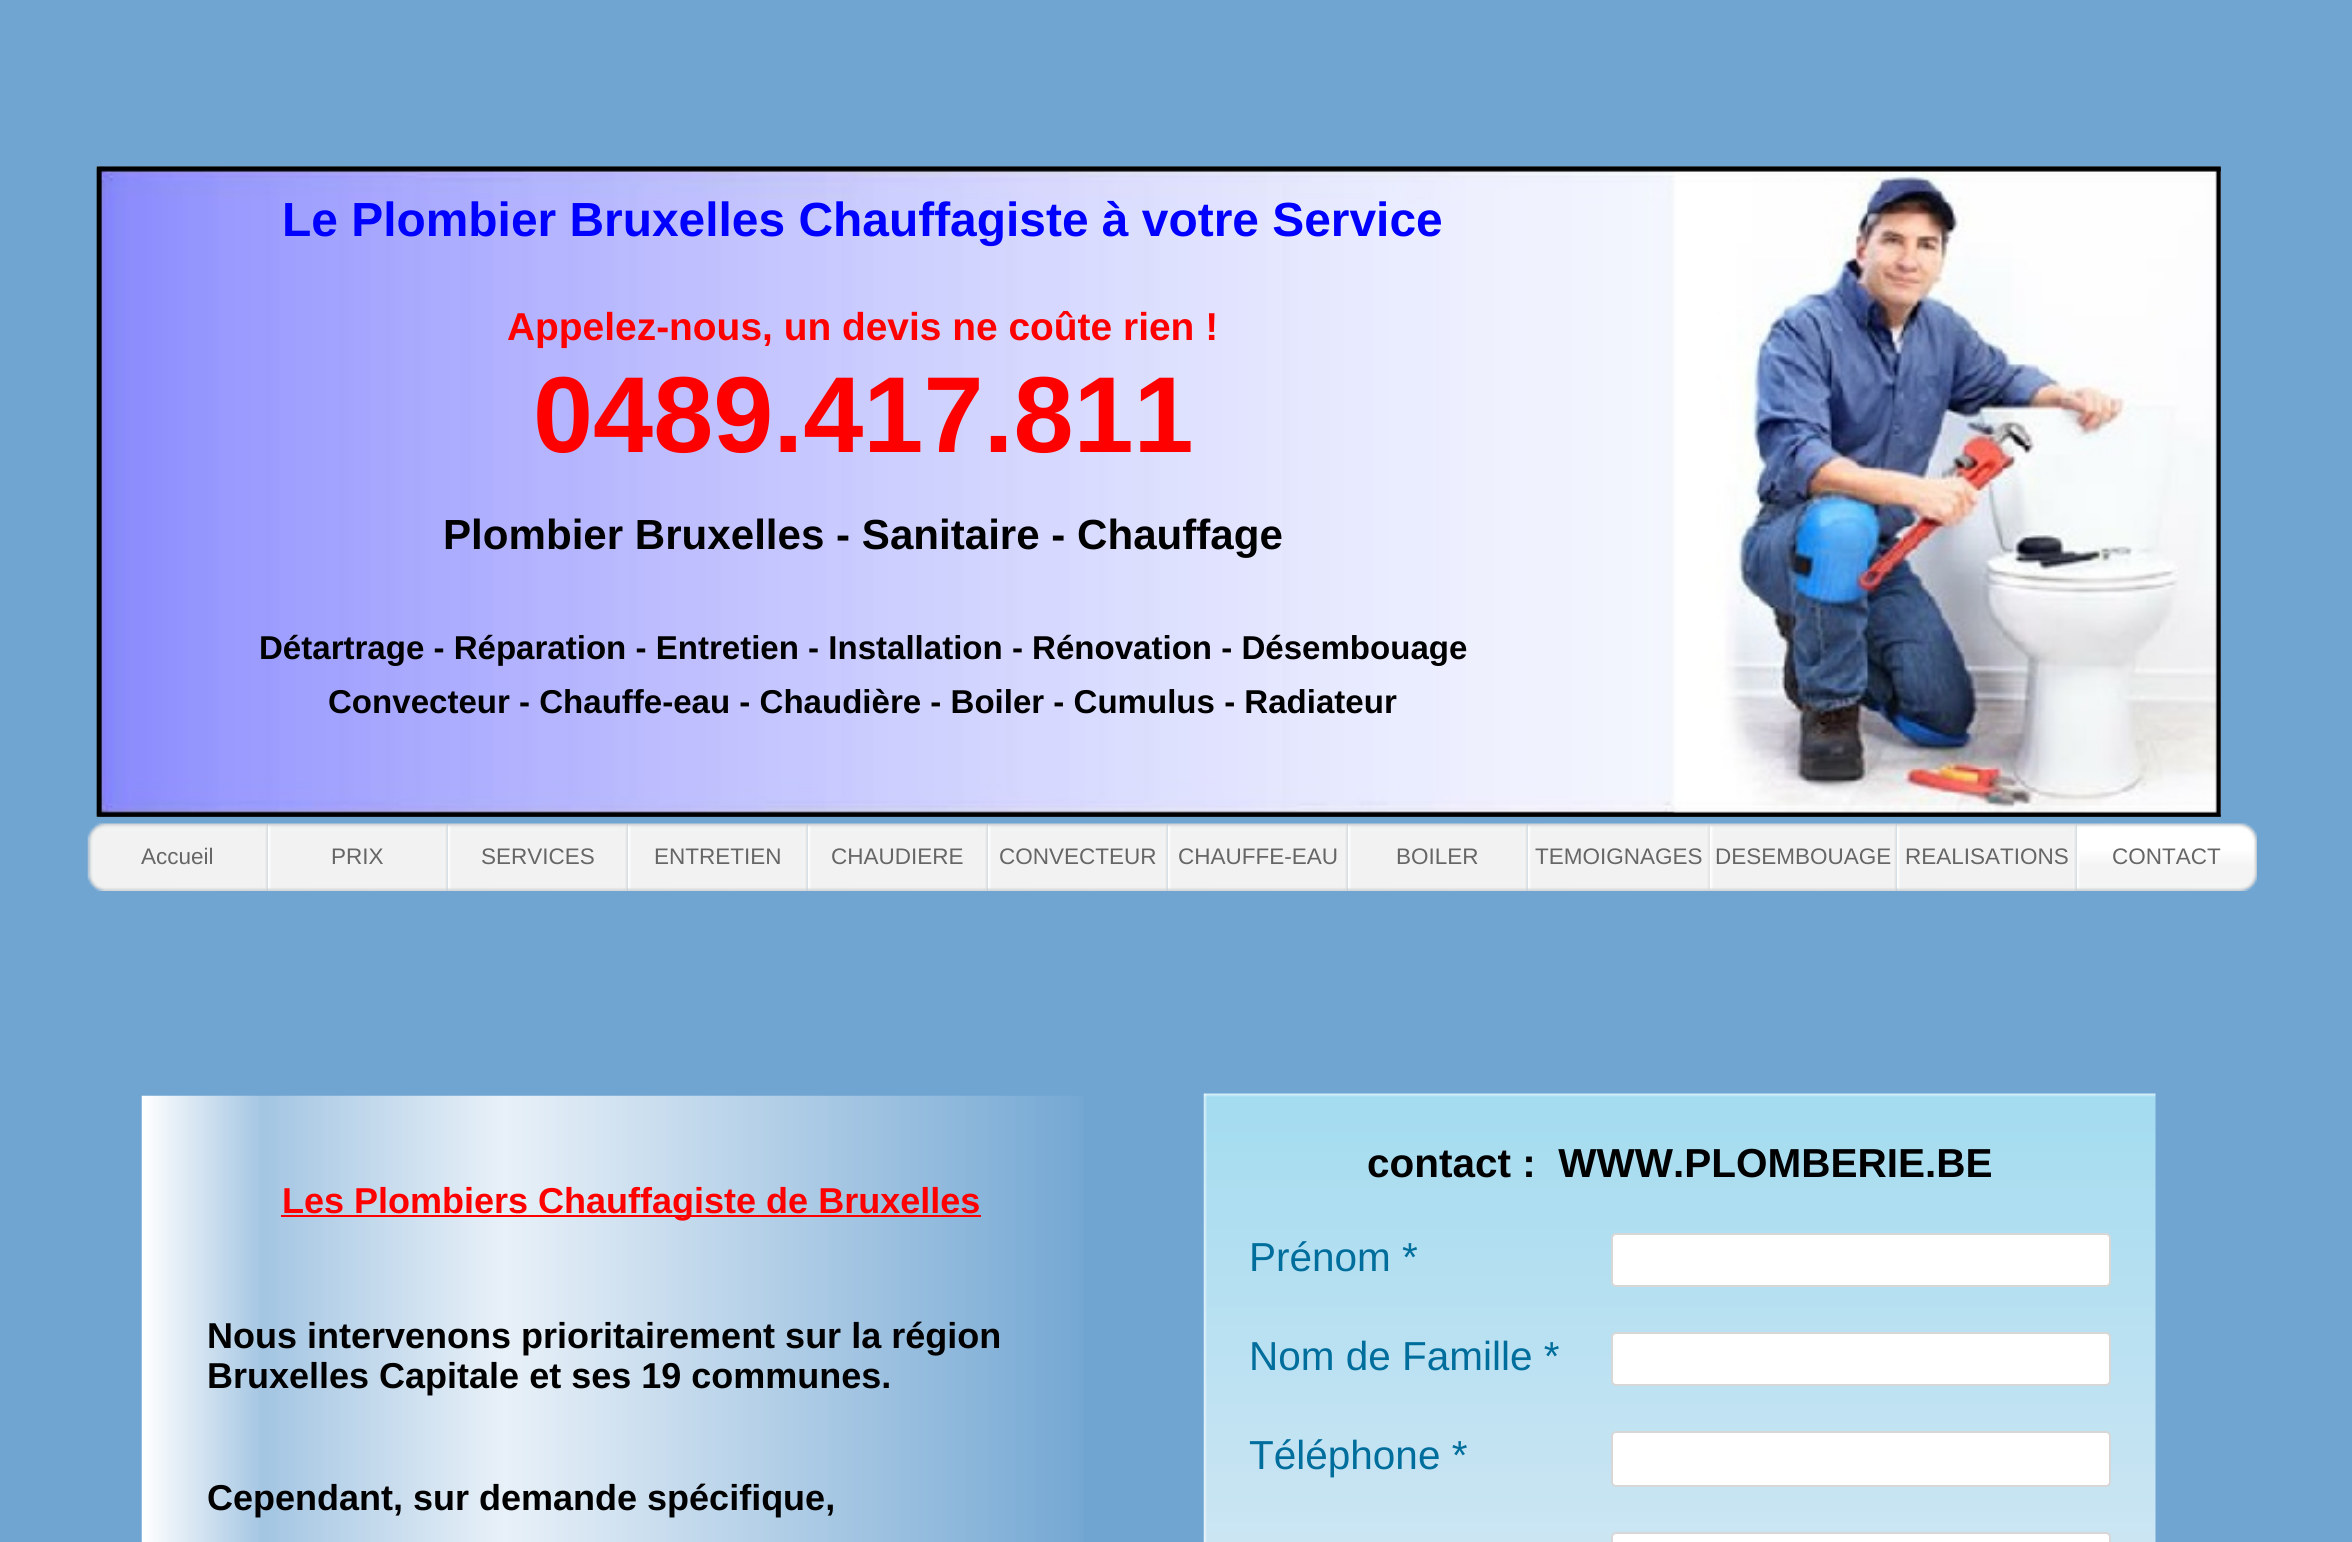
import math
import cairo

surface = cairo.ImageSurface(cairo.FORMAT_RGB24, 2352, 1542)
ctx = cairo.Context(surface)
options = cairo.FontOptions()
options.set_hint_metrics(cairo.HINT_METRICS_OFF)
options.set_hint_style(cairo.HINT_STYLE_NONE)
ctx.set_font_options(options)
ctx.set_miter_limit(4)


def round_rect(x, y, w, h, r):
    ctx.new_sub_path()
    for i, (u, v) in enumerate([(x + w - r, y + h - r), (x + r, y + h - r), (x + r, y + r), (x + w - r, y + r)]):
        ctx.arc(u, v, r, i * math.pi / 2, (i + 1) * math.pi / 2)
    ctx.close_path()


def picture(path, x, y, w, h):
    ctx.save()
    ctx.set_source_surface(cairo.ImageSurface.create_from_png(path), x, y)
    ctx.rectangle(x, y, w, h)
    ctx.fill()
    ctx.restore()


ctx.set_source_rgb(0.439, 0.647, 0.824)
ctx.paint()
picture("img1.png", 96, 166, 2125, 651)
picture("img2.png", 96, 166, 2125, 651)
ctx.select_font_face("Liberation Sans", cairo.FONT_SLANT_NORMAL, cairo.FONT_WEIGHT_BOLD)
ctx.set_font_size(47.9)
ctx.set_source_rgb(0, 0, 1)
ctx.move_to(282, 236)
ctx.show_text("Le Plombier Bruxelles Chauffagiste à votre Service")
ctx.set_font_size(38.9)
ctx.set_source_rgb(1, 0, 0)
ctx.move_to(507, 340)
ctx.show_text("Appelez-nous, un devis ne coûte rien !")
ctx.set_font_size(108)
ctx.move_to(533, 452)
ctx.show_text("0489.417.811")
ctx.set_font_size(42.1)
ctx.set_source_rgb(0, 0, 0)
ctx.move_to(443, 549)
ctx.show_text("Plombier Bruxelles - Sanitaire - Chauffage")
ctx.set_font_size(33.05)
ctx.move_to(259, 659)
ctx.show_text("Détartrage - Réparation - Entretien - Installation - Rénovation - Désembouage")
ctx.move_to(328, 713)
ctx.show_text("Convecteur - Chauffe-eau - Chaudière - Boiler - Cumulus - Radiateur")
picture("img3.png", 87, 823, 181, 68)
ctx.select_font_face("Liberation Sans")
ctx.set_font_size(22.5)
ctx.set_source_rgb(0.4, 0.4, 0.4)
ctx.move_to(141, 864)
ctx.show_text("Accueil")
picture("img4.png", 267, 823, 181, 68)
ctx.move_to(331, 864)
ctx.show_text("PRIX")
picture("img5.png", 447, 823, 181, 68)
ctx.move_to(481, 864)
ctx.show_text("SERVICES")
picture("img5.png", 627, 823, 181, 68)
ctx.move_to(654, 864)
ctx.show_text("ENTRETIEN")
picture("img5.png", 807, 823, 181, 68)
ctx.move_to(831, 864)
ctx.show_text("CHAUDIERE")
picture("img6.png", 987, 823, 181, 68)
ctx.move_to(999, 864)
ctx.show_text("CONVECTEUR")
picture("img5.png", 1167, 823, 181, 68)
ctx.move_to(1178, 864)
ctx.show_text("CHAUFFE-EAU")
picture("img5.png", 1347, 823, 181, 68)
ctx.move_to(1396, 864)
ctx.show_text("BOILER")
picture("img7.png", 1527, 823, 183, 68)
ctx.move_to(1535, 864)
ctx.show_text("TEMOIGNAGES")
picture("img8.png", 1710, 823, 187, 68)
ctx.move_to(1715, 864)
ctx.show_text("DESEMBOUAGE")
picture("img6.png", 1896, 823, 181, 68)
ctx.move_to(1905, 864)
ctx.show_text("REALISATIONS")
picture("img9.png", 2076, 823, 181, 68)
ctx.move_to(2112, 864)
ctx.show_text("CONTACT")
picture("img10.png", 141, 1095, 943, 447)
picture("img11.png", 1203, 1093, 953, 449)
ctx.select_font_face("Liberation Sans", cairo.FONT_SLANT_NORMAL, cairo.FONT_WEIGHT_BOLD)
ctx.set_font_size(40.5)
ctx.set_source_rgb(0, 0, 0)
ctx.move_to(1367, 1177)
ctx.show_text("contact :  WWW.PLOMBERIE.BE")
ctx.select_font_face("Liberation Sans")
ctx.set_source_rgb(0, 0.431, 0.612)
ctx.move_to(1249, 1271)
ctx.show_text("Prénom *")
ctx.set_source_rgb(1, 1, 1)
round_rect(1612, 1234, 498, 52, 4)
ctx.fill_preserve()
ctx.set_source_rgb(0.843, 0.843, 0.843)
ctx.stroke()
ctx.set_source_rgb(0, 0.431, 0.612)
ctx.move_to(1249, 1370)
ctx.show_text("Nom de Famille *")
ctx.set_source_rgb(1, 1, 1)
round_rect(1612, 1333, 498, 52, 4)
ctx.fill_preserve()
ctx.set_source_rgb(0.843, 0.843, 0.843)
ctx.stroke()
ctx.set_source_rgb(0, 0.431, 0.612)
ctx.move_to(1249, 1469)
ctx.show_text("Téléphone *")
ctx.set_source_rgb(1, 1, 1)
round_rect(1612, 1432, 498, 54, 4)
ctx.fill_preserve()
ctx.set_source_rgb(0.843, 0.843, 0.843)
ctx.stroke()
ctx.set_source_rgb(1, 1, 1)
round_rect(1612, 1533, 498, 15, 4)
ctx.fill_preserve()
ctx.set_source_rgb(0.843, 0.843, 0.843)
ctx.stroke()
ctx.set_source_rgb(1, 0, 0)
ctx.rectangle(281, 1215, 700, 2)
ctx.fill()
ctx.select_font_face("Liberation Sans", cairo.FONT_SLANT_NORMAL, cairo.FONT_WEIGHT_BOLD)
ctx.set_font_size(36)
ctx.move_to(282, 1213)
ctx.show_text("Les Plombiers Chauffagiste de Bruxelles")
ctx.set_source_rgb(0, 0, 0)
ctx.move_to(207, 1348)
ctx.show_text("Nous intervenons prioritairement sur la région")
ctx.move_to(207, 1388)
ctx.show_text("Bruxelles Capitale et ses 19 communes.")
ctx.move_to(207, 1510)
ctx.show_text("Cependant, sur demande spécifique,")
surface.write_to_png("page.png")
